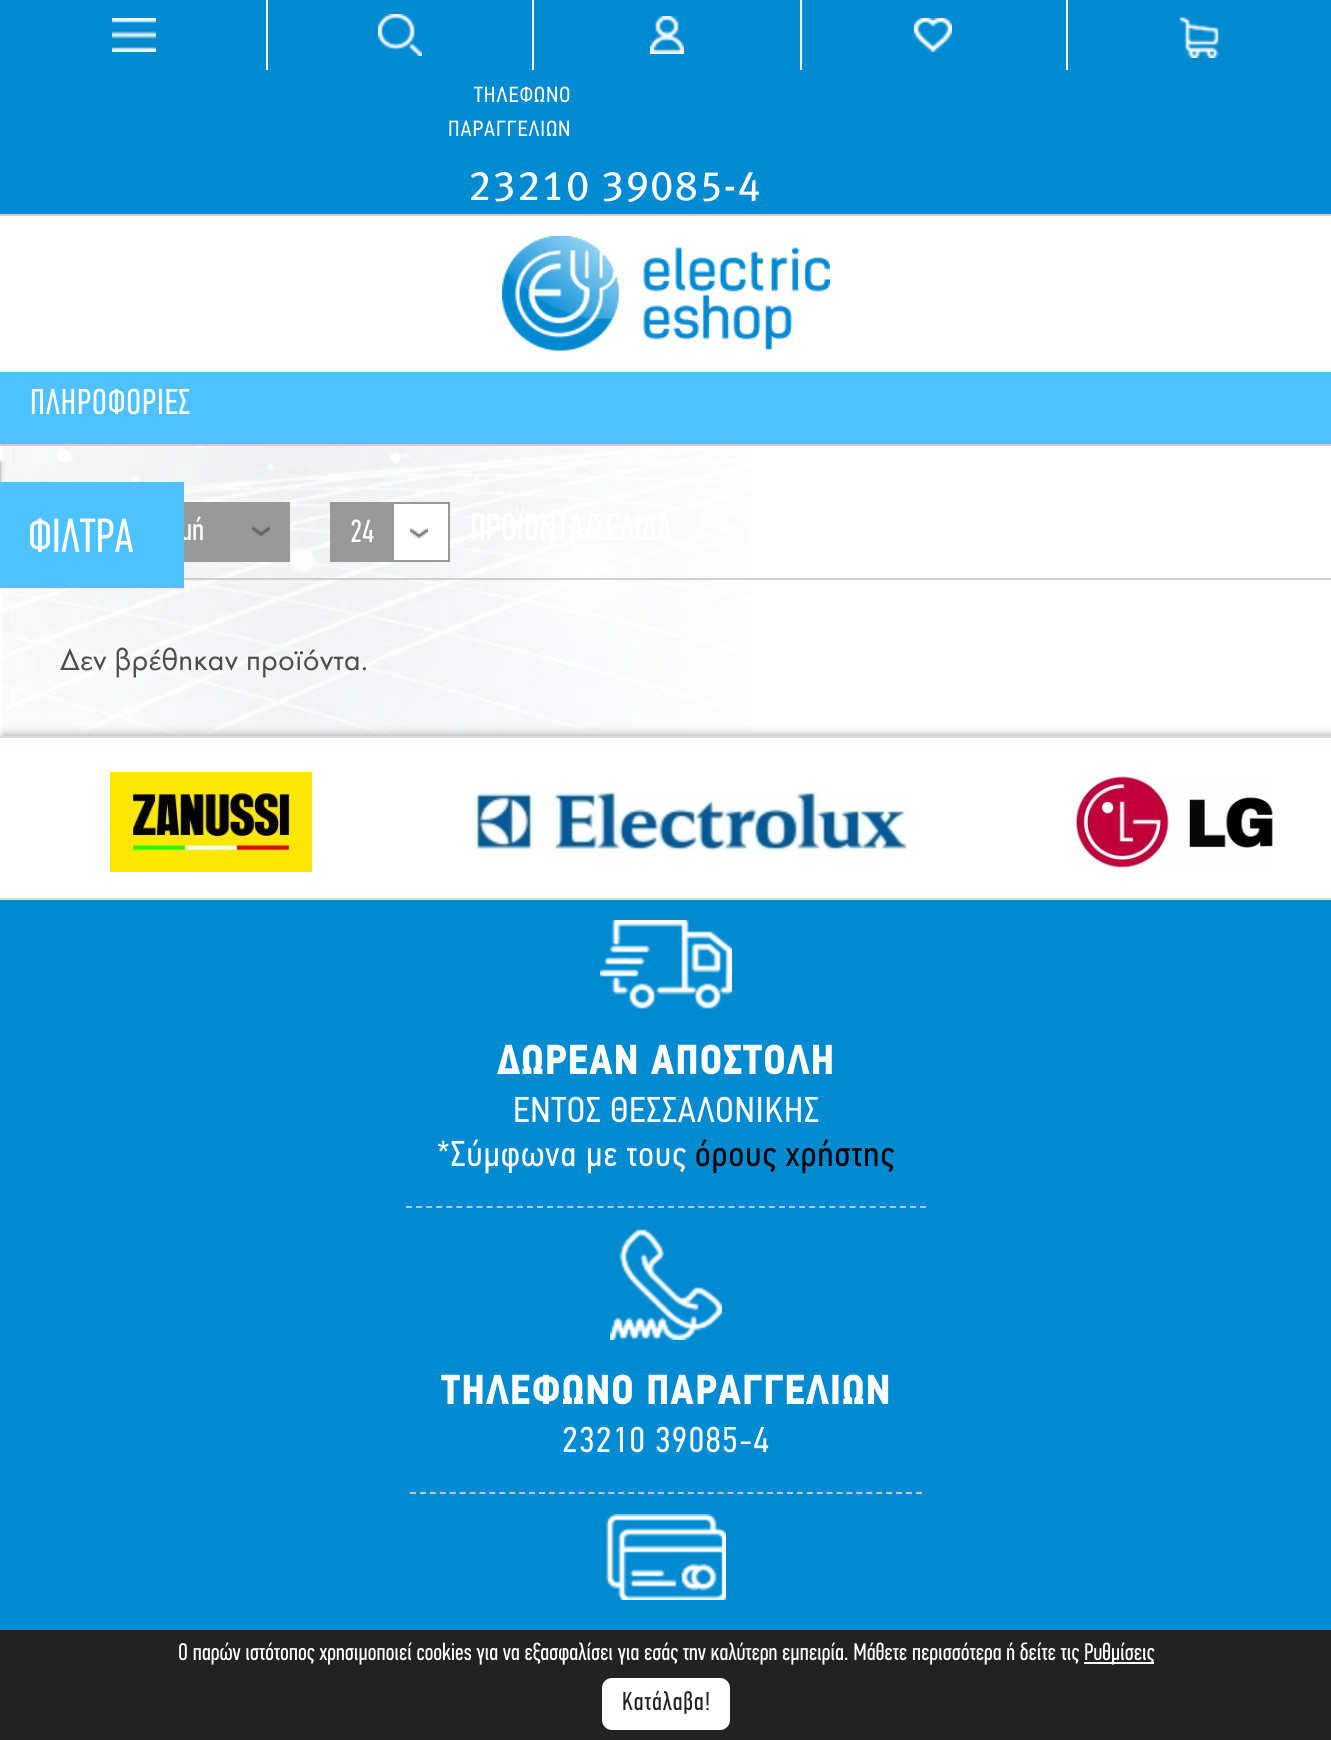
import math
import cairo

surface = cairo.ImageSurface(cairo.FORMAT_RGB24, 1331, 1740)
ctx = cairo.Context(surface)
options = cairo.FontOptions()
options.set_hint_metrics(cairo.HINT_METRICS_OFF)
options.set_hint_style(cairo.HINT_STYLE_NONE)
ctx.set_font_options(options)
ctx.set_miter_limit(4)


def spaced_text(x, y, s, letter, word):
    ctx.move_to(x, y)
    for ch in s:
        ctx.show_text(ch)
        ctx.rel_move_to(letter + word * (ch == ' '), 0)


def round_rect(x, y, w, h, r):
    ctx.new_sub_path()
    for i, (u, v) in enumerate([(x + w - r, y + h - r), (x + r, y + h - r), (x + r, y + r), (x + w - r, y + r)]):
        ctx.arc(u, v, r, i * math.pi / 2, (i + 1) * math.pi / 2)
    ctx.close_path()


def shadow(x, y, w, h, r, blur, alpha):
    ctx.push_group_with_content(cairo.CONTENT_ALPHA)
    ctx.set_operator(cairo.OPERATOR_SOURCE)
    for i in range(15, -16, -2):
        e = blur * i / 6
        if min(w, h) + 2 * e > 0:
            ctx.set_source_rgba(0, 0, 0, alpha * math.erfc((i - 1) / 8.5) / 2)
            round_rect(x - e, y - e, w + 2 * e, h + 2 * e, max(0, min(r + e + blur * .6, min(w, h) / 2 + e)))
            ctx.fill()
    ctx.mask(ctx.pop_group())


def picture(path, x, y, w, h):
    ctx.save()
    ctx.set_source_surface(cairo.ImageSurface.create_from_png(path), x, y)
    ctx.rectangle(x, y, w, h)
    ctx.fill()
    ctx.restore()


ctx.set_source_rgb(1, 1, 1)
ctx.paint()
picture("img1.png", 0, 446, 752, 290)
ctx.set_source_rgb(0, 0.541, 0.82)
ctx.rectangle(0, 0, 1331, 214)
ctx.fill()
picture("img2.png", 112, 18, 44, 34)
ctx.set_source_rgb(1, 1, 1)
ctx.rectangle(266, 0, 2, 70)
ctx.fill()
picture("img3.png", 378, 14, 44, 42)
ctx.rectangle(532, 0, 2, 70)
ctx.fill()
picture("img4.png", 650, 16, 34, 38)
ctx.rectangle(800, 0, 2, 70)
ctx.fill()
picture("img5.png", 914, 18, 38, 34)
ctx.rectangle(1066, 0, 2, 70)
ctx.fill()
picture("img6.png", 1179, 17, 40, 41)
ctx.set_source_rgb(0.812, 0.812, 0.816)
ctx.rectangle(0, 214, 1331, 2)
ctx.fill()
ctx.select_font_face("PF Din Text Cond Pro")
ctx.set_font_size(22)
ctx.set_source_rgb(1, 1, 1)
spaced_text(474, 102, "ΤΗΛΕΦΩΝΟ", 1, 0)
spaced_text(448, 136, "ΠΑΡΑΓΓΕΛΙΩΝ", 1, 0)
ctx.select_font_face("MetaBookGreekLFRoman")
ctx.set_font_size(42)
spaced_text(468, 200, "23210 39085-4", 1, 0)
picture("img7.png", 502, 236, 328, 115)
ctx.set_source_rgb(0.302, 0.761, 1)
ctx.rectangle(0, 372, 1331, 72)
ctx.fill()
ctx.set_source_rgb(0.812, 0.812, 0.816)
ctx.rectangle(0, 444, 1331, 2)
ctx.fill()
picture("img8.png", 31, 388, 159, 27)
ctx.set_source_rgb(0, 0, 0)
shadow(-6, 462, 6, 86, 0, 2, 0.5)
ctx.set_source_rgb(0.302, 0.761, 1)
ctx.rectangle(0, 482, 184, 106)
ctx.fill()
picture("img9.png", 30, 518, 103, 34)
ctx.set_source_rgb(0.812, 0.812, 0.816)
ctx.rectangle(184, 578, 1147, 2)
ctx.fill()
ctx.set_source_rgb(0.6, 0.6, 0.6)
ctx.rectangle(184, 502, 106, 60)
ctx.fill()
picture("img10.png", 252, 526, 18, 10)
picture("img11.png", 184, 516, 19, 25)
ctx.set_source_rgb(1, 1, 1)
ctx.rectangle(394, 504, 54, 56)
ctx.fill()
ctx.rectangle(331, 503, 118, 58)
ctx.set_source_rgb(0.6, 0.6, 0.6)
ctx.stroke()
picture("img12.png", 410, 528, 18, 10)
ctx.rectangle(332, 504, 62, 56)
ctx.fill()
picture("img13.png", 351, 519, 23, 23)
picture("img14.png", 472, 508, 198, 32)
ctx.select_font_face("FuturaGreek")
ctx.set_font_size(32)
ctx.set_source_rgb(0.302, 0.302, 0.302)
ctx.move_to(60, 670)
ctx.show_text("Δεν βρέθηκαν προϊόντα.")
ctx.set_source_rgb(0.6, 0.6, 0.6)
shadow(4, 736, 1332, 164, 0, 5, 1)
ctx.set_source_rgb(1, 1, 1)
ctx.rectangle(0, 738, 1331, 160)
ctx.fill()
ctx.set_source_rgb(0.878, 0.847, 0.824)
ctx.rectangle(0, 736, 1331, 2)
ctx.fill()
ctx.rectangle(0, 898, 1331, 2)
ctx.fill()
picture("img15.png", 110, 772, 202, 100)
picture("img16.png", 474, 792, 435, 58)
picture("img17.png", 1075, 775, 198, 93)
ctx.set_source_rgb(0, 0.541, 0.82)
ctx.rectangle(0, 900, 1331, 730)
ctx.fill()
ctx.new_path()
ctx.move_to(406, 1207)
ctx.line_to(926, 1207)
ctx.set_source_rgb(0.769, 0.769, 0.769)
ctx.set_dash([6, 4.08])
ctx.stroke()
picture("img18.png", 600, 920, 132, 89)
ctx.select_font_face("PF Din Text Cond Pro", cairo.FONT_SLANT_NORMAL, cairo.FONT_WEIGHT_BOLD)
ctx.set_font_size(42)
ctx.set_source_rgb(1, 1, 1)
spaced_text(497, 1074, "ΔΩΡΕΑΝ ΑΠΟΣΤΟΛΗ", 1, 0)
ctx.select_font_face("PF Din Text Cond Pro")
ctx.set_font_size(36)
spaced_text(513, 1122, "ΕΝΤΟΣ ΘΕΣΣΑΛΟΝΙΚΗΣ", 1, 0)
spaced_text(437, 1166, "*Σύμφωνα με τους", 1, 0)
ctx.set_source_rgb(0, 0, 0)
spaced_text(695, 1166, "όρους χρήστης", 1, 0)
ctx.new_path()
ctx.move_to(410, 1493)
ctx.line_to(922, 1493)
ctx.set_source_rgb(0.769, 0.769, 0.769)
ctx.set_dash([6, 3.92])
ctx.stroke()
picture("img19.png", 610, 1229, 112, 111)
ctx.select_font_face("PF Din Text Cond Pro", cairo.FONT_SLANT_NORMAL, cairo.FONT_WEIGHT_BOLD)
ctx.set_font_size(42)
ctx.set_source_rgb(1, 1, 1)
spaced_text(441, 1404, "ΤΗΛΕΦΩΝΟ ΠΑΡΑΓΓΕΛΙΩΝ", 1, 0)
ctx.select_font_face("PF Din Text Cond Pro")
ctx.set_font_size(36)
spaced_text(562, 1452, "23210 39085-4", 1, 0)
picture("img20.png", 606, 1514, 120, 86)
ctx.set_source_rgb(0.133, 0.133, 0.133)
ctx.rectangle(0, 1630, 1331, 110)
ctx.fill()
picture("img21.png", 179, 1642, 901, 23)
ctx.set_source_rgb(1, 1, 1)
ctx.rectangle(1084, 1662, 70, 2)
ctx.fill()
picture("img22.png", 1085, 1642, 70, 23)
round_rect(602, 1678, 128, 52, 10)
ctx.fill()
picture("img23.png", 623, 1690, 86, 24)
surface.write_to_png("page.png")
